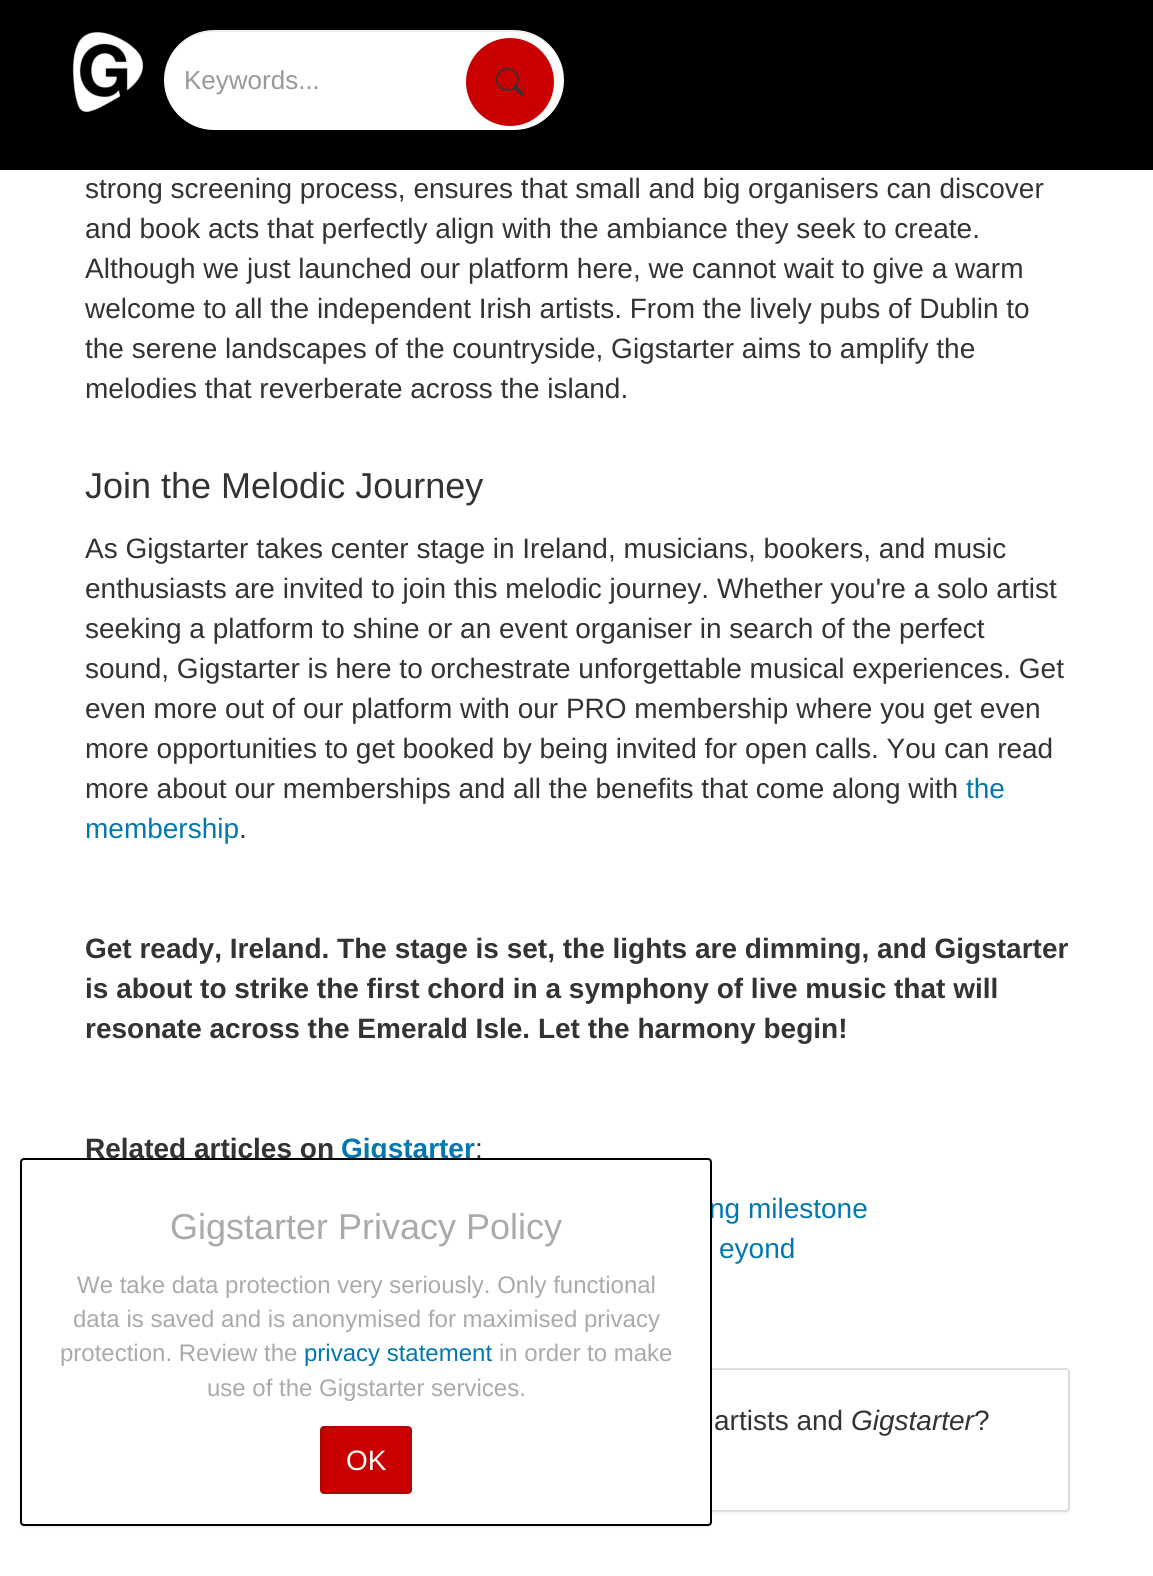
import math
import cairo

surface = cairo.ImageSurface(cairo.FORMAT_RGB24, 1153, 1576)
ctx = cairo.Context(surface)
options = cairo.FontOptions()
options.set_hint_metrics(cairo.HINT_METRICS_OFF)
options.set_hint_style(cairo.HINT_STYLE_NONE)
ctx.set_font_options(options)
ctx.set_miter_limit(4)


def round_rect(x, y, w, h, r):
    ctx.new_sub_path()
    for i, (u, v) in enumerate([(x + w - r, y + h - r), (x + r, y + h - r), (x + r, y + r), (x + w - r, y + r)]):
        ctx.arc(u, v, r, i * math.pi / 2, (i + 1) * math.pi / 2)
    ctx.close_path()


def shadow(x, y, w, h, r, blur, alpha):
    ctx.push_group_with_content(cairo.CONTENT_ALPHA)
    ctx.set_operator(cairo.OPERATOR_SOURCE)
    for i in range(15, -16, -2):
        e = blur * i / 6
        if min(w, h) + 2 * e > 0:
            ctx.set_source_rgba(0, 0, 0, alpha * math.erfc((i - 1) / 8.5) / 2)
            round_rect(x - e, y - e, w + 2 * e, h + 2 * e, max(0, min(r + e + blur * .6, min(w, h) / 2 + e)))
            ctx.fill()
    ctx.mask(ctx.pop_group())


def picture(path, x, y, w, h):
    ctx.save()
    ctx.set_source_surface(cairo.ImageSurface.create_from_png(path), x, y)
    ctx.rectangle(x, y, w, h)
    ctx.fill()
    ctx.restore()


ctx.set_source_rgb(1, 1, 1)
ctx.paint()
ctx.set_source_rgb(0, 0, 0)
ctx.rectangle(0, 0, 1153, 170)
ctx.fill()
picture("img1.png", 72, 32, 72, 80)
ctx.set_source_rgb(1, 1, 1)
round_rect(164, 30, 400, 100, 50)
ctx.fill()
ctx.set_source_rgba(0, 0, 0, 0.07)
ctx.new_path()
ctx.move_to(214, 32)
ctx.line_to(514, 32)
ctx.curve_to(542, 32, 563, 53, 564, 81)
ctx.line_to(564, 80)
ctx.curve_to(564, 52, 542, 30, 514, 30)
ctx.line_to(214, 30)
ctx.curve_to(186, 30, 164, 52, 164, 80)
ctx.line_to(164, 81)
ctx.curve_to(165, 53, 186, 32, 214, 32)
ctx.close_path()
ctx.fill()
ctx.select_font_face("Liberation Sans")
ctx.set_font_size(26)
ctx.set_source_rgb(0.6, 0.6, 0.6)
ctx.move_to(184, 89)
ctx.show_text("Keywords...")
ctx.set_source_rgb(0.792, 0, 0)
ctx.new_path()
ctx.arc(510, 82, 44, 0, 2 * math.pi)
ctx.fill()
picture("img2.png", 496, 68, 28, 28)
ctx.set_font_size(28)
ctx.set_source_rgb(0.2, 0.2, 0.2)
ctx.move_to(85, 198)
ctx.show_text("strong screening process, ensures that small and big organisers can discover")
ctx.move_to(85, 238)
ctx.show_text("and book acts that perfectly align with the ambiance they seek to create.")
ctx.move_to(85, 278)
ctx.show_text("Although we just launched our platform here, we cannot wait to give a warm")
ctx.move_to(85, 318)
ctx.show_text("welcome to all the independent Irish artists. From the lively pubs of Dublin to")
ctx.move_to(85, 358)
ctx.show_text("the serene landscapes of the countryside, Gigstarter aims to amplify the")
ctx.move_to(85, 398)
ctx.show_text("melodies that reverberate across the island.")
ctx.set_font_size(36)
ctx.move_to(85, 498)
ctx.show_text("Join the Melodic Journey")
ctx.set_font_size(28)
ctx.move_to(85, 558)
ctx.show_text("As Gigstarter takes center stage in Ireland, musicians, bookers, and music")
ctx.move_to(85, 598)
ctx.show_text("enthusiasts are invited to join this melodic journey. Whether you're a solo artist")
ctx.move_to(85, 638)
ctx.show_text("seeking a platform to shine or an event organiser in search of the perfect")
ctx.move_to(85, 678)
ctx.show_text("sound, Gigstarter is here to orchestrate unforgettable musical experiences. Get")
ctx.move_to(85, 718)
ctx.show_text("even more out of our platform with our PRO membership where you get even")
ctx.move_to(85, 758)
ctx.show_text("more opportunities to get booked by being invited for open calls. You can read")
ctx.move_to(85, 798)
ctx.show_text("more about our memberships and all the benefits that come along with")
ctx.set_source_rgb(0.008, 0.471, 0.682)
ctx.move_to(966, 798)
ctx.show_text("the")
ctx.move_to(85, 838)
ctx.show_text("membership")
ctx.set_source_rgb(0.2, 0.2, 0.2)
ctx.move_to(239, 838)
ctx.show_text(".")
ctx.select_font_face("Liberation Sans", cairo.FONT_SLANT_NORMAL, cairo.FONT_WEIGHT_BOLD)
ctx.move_to(85, 958)
ctx.show_text("Get ready, Ireland. The stage is set, the lights are dimming, and Gigstarter")
ctx.move_to(85, 998)
ctx.show_text("is about to strike the first chord in a symphony of live music that will")
ctx.move_to(85, 1038)
ctx.show_text("resonate across the Emerald Isle. Let the harmony begin!")
ctx.move_to(85, 1158)
ctx.show_text("Related articles on")
ctx.set_source_rgb(0.008, 0.471, 0.682)
ctx.move_to(341, 1158)
ctx.show_text("Gigstarter")
ctx.select_font_face("Liberation Sans")
ctx.set_source_rgb(0.2, 0.2, 0.2)
ctx.move_to(475, 1158)
ctx.show_text(":")
ctx.set_source_rgb(0.008, 0.471, 0.682)
ctx.move_to(709, 1218)
ctx.show_text("ng milestone")
ctx.move_to(719, 1258)
ctx.show_text("eyond")
ctx.set_source_rgb(0, 0, 0)
shadow(84, 1370, 986, 144, 4, 1, 0.05)
ctx.set_source_rgb(1, 1, 1)
round_rect(85, 1369, 984, 142, 3)
ctx.fill_preserve()
ctx.set_source_rgb(0.867, 0.867, 0.867)
ctx.stroke()
ctx.set_source_rgb(0.2, 0.2, 0.2)
ctx.move_to(714, 1430)
ctx.show_text("artists and")
ctx.select_font_face("Liberation Sans", cairo.FONT_SLANT_ITALIC)
ctx.move_to(851, 1430)
ctx.show_text("Gigstarter")
ctx.select_font_face("Liberation Sans")
ctx.move_to(974, 1430)
ctx.show_text("?")
ctx.set_source_rgb(0, 0, 0)
shadow(20, 1160, 692, 368, 4, 1, 0.05)
ctx.set_source_rgb(1, 1, 1)
round_rect(21, 1159, 690, 366, 3)
ctx.fill_preserve()
ctx.set_source_rgb(0, 0, 0)
ctx.stroke()
ctx.set_font_size(36)
ctx.set_source_rgb(0.667, 0.667, 0.667)
ctx.move_to(170, 1239)
ctx.show_text("Gigstarter Privacy Policy")
ctx.set_font_size(24)
ctx.move_to(77, 1293)
ctx.show_text("We take data protection very seriously. Only functional")
ctx.move_to(73, 1327)
ctx.show_text("data is saved and is anonymised for maximised privacy")
ctx.move_to(60, 1361)
ctx.show_text("protection. Review the")
ctx.set_source_rgb(0.008, 0.471, 0.682)
ctx.move_to(304, 1361)
ctx.show_text("privacy statement")
ctx.set_source_rgb(0.667, 0.667, 0.667)
ctx.move_to(499, 1361)
ctx.show_text("in order to make")
ctx.move_to(207, 1396)
ctx.show_text("use of the Gigstarter services.")
ctx.set_source_rgb(0.792, 0, 0)
round_rect(321, 1427, 90, 66, 3)
ctx.fill_preserve()
ctx.set_source_rgb(0.671, 0.02, 0.02)
ctx.stroke()
ctx.set_font_size(28)
ctx.set_source_rgb(1, 1, 1)
ctx.move_to(346, 1470)
ctx.show_text("OK")
surface.write_to_png("page.png")
